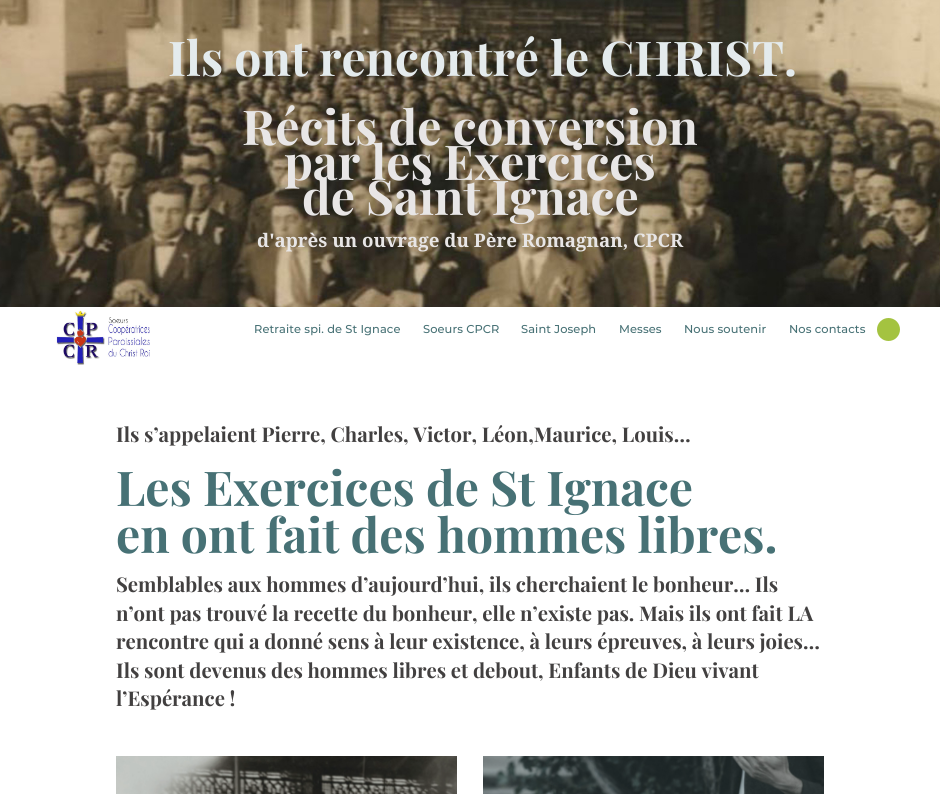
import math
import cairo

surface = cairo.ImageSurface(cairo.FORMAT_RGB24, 940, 794)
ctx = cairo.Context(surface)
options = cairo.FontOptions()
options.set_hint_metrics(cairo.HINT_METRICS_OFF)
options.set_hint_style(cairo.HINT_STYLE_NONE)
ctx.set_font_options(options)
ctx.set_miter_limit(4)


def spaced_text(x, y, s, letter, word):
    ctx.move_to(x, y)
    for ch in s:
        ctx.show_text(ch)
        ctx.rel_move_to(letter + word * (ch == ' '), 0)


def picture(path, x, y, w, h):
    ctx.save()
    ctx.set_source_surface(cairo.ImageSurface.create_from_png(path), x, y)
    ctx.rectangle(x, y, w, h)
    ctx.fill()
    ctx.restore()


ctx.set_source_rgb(1, 1, 1)
ctx.paint()
picture("img1.png", 0, 0, 940, 307)
ctx.select_font_face("Playfair Display", cairo.FONT_SLANT_NORMAL, cairo.FONT_WEIGHT_BOLD)
ctx.set_font_size(48)
ctx.set_source_rgb(0.894, 0.918, 0.929)
ctx.move_to(168, 76)
ctx.show_text("Ils ont rencontré le CHRIST.")
ctx.set_source_rgb(0.91, 0.902, 0.902)
ctx.move_to(242, 145)
ctx.show_text("Récits de conversion")
ctx.move_to(284, 180)
ctx.show_text("par les Exercices")
ctx.move_to(302, 215)
ctx.show_text("de Saint Ignace")
ctx.select_font_face("Droid Serif", cairo.FONT_SLANT_NORMAL, cairo.FONT_WEIGHT_BOLD)
ctx.set_font_size(18.7)
ctx.move_to(257, 247)
ctx.show_text("d'après un ouvrage du Père Romagnan, CPCR")
picture("img2.png", 56, 310, 94, 55)
ctx.select_font_face("Montserrat Medium")
ctx.set_font_size(11.4)
ctx.set_source_rgb(0.278, 0.443, 0.459)
spaced_text(254, 333, "Retraite spi. de St Ignace", 0.1, 0)
spaced_text(423, 333, "Soeurs CPCR", 0.1, 0)
spaced_text(521, 333, "Saint Joseph", 0.1, 0)
spaced_text(619, 333, "Messes", 0.1, 0)
spaced_text(684, 333, "Nous soutenir", 0.1, 0)
spaced_text(789, 333, "Nos contacts", 0.1, 0)
ctx.set_source_rgb(0.643, 0.765, 0.251)
ctx.new_path()
ctx.arc(888.5, 329.5, 11.5, 0, 2 * math.pi)
ctx.fill()
ctx.select_font_face("Playfair Display", cairo.FONT_SLANT_NORMAL, cairo.FONT_WEIGHT_BOLD)
ctx.set_font_size(20.3)
ctx.set_source_rgb(0.259, 0.251, 0.251)
ctx.move_to(116, 442)
ctx.show_text("Ils s’appelaient Pierre, Charles, Victor, Léon,Maurice, Louis…")
ctx.set_font_size(48)
ctx.set_source_rgb(0.278, 0.443, 0.459)
ctx.move_to(116, 506)
ctx.show_text("Les Exercices de St Ignace")
ctx.move_to(116, 553)
ctx.show_text("en ont fait des hommes libres.")
ctx.set_font_size(20.3)
ctx.set_source_rgb(0.259, 0.251, 0.251)
ctx.move_to(116, 592)
ctx.show_text("Semblables aux hommes d’aujourd’hui, ils cherchaient le bonheur… Ils")
ctx.move_to(116, 621)
ctx.show_text("n’ont pas trouvé la recette du bonheur, elle n’existe pas. Mais ils ont fait LA")
ctx.move_to(116, 649)
ctx.show_text("rencontre qui a donné sens à leur existence, à leurs épreuves, à leurs joies…")
ctx.move_to(116, 678)
ctx.show_text("Ils sont devenus des hommes libres et debout, Enfants de Dieu vivant")
ctx.move_to(116, 706)
ctx.show_text("l’Espérance !")
picture("img3.png", 116, 756, 341, 38)
picture("img4.png", 483, 756, 341, 38)
surface.write_to_png("page.png")
